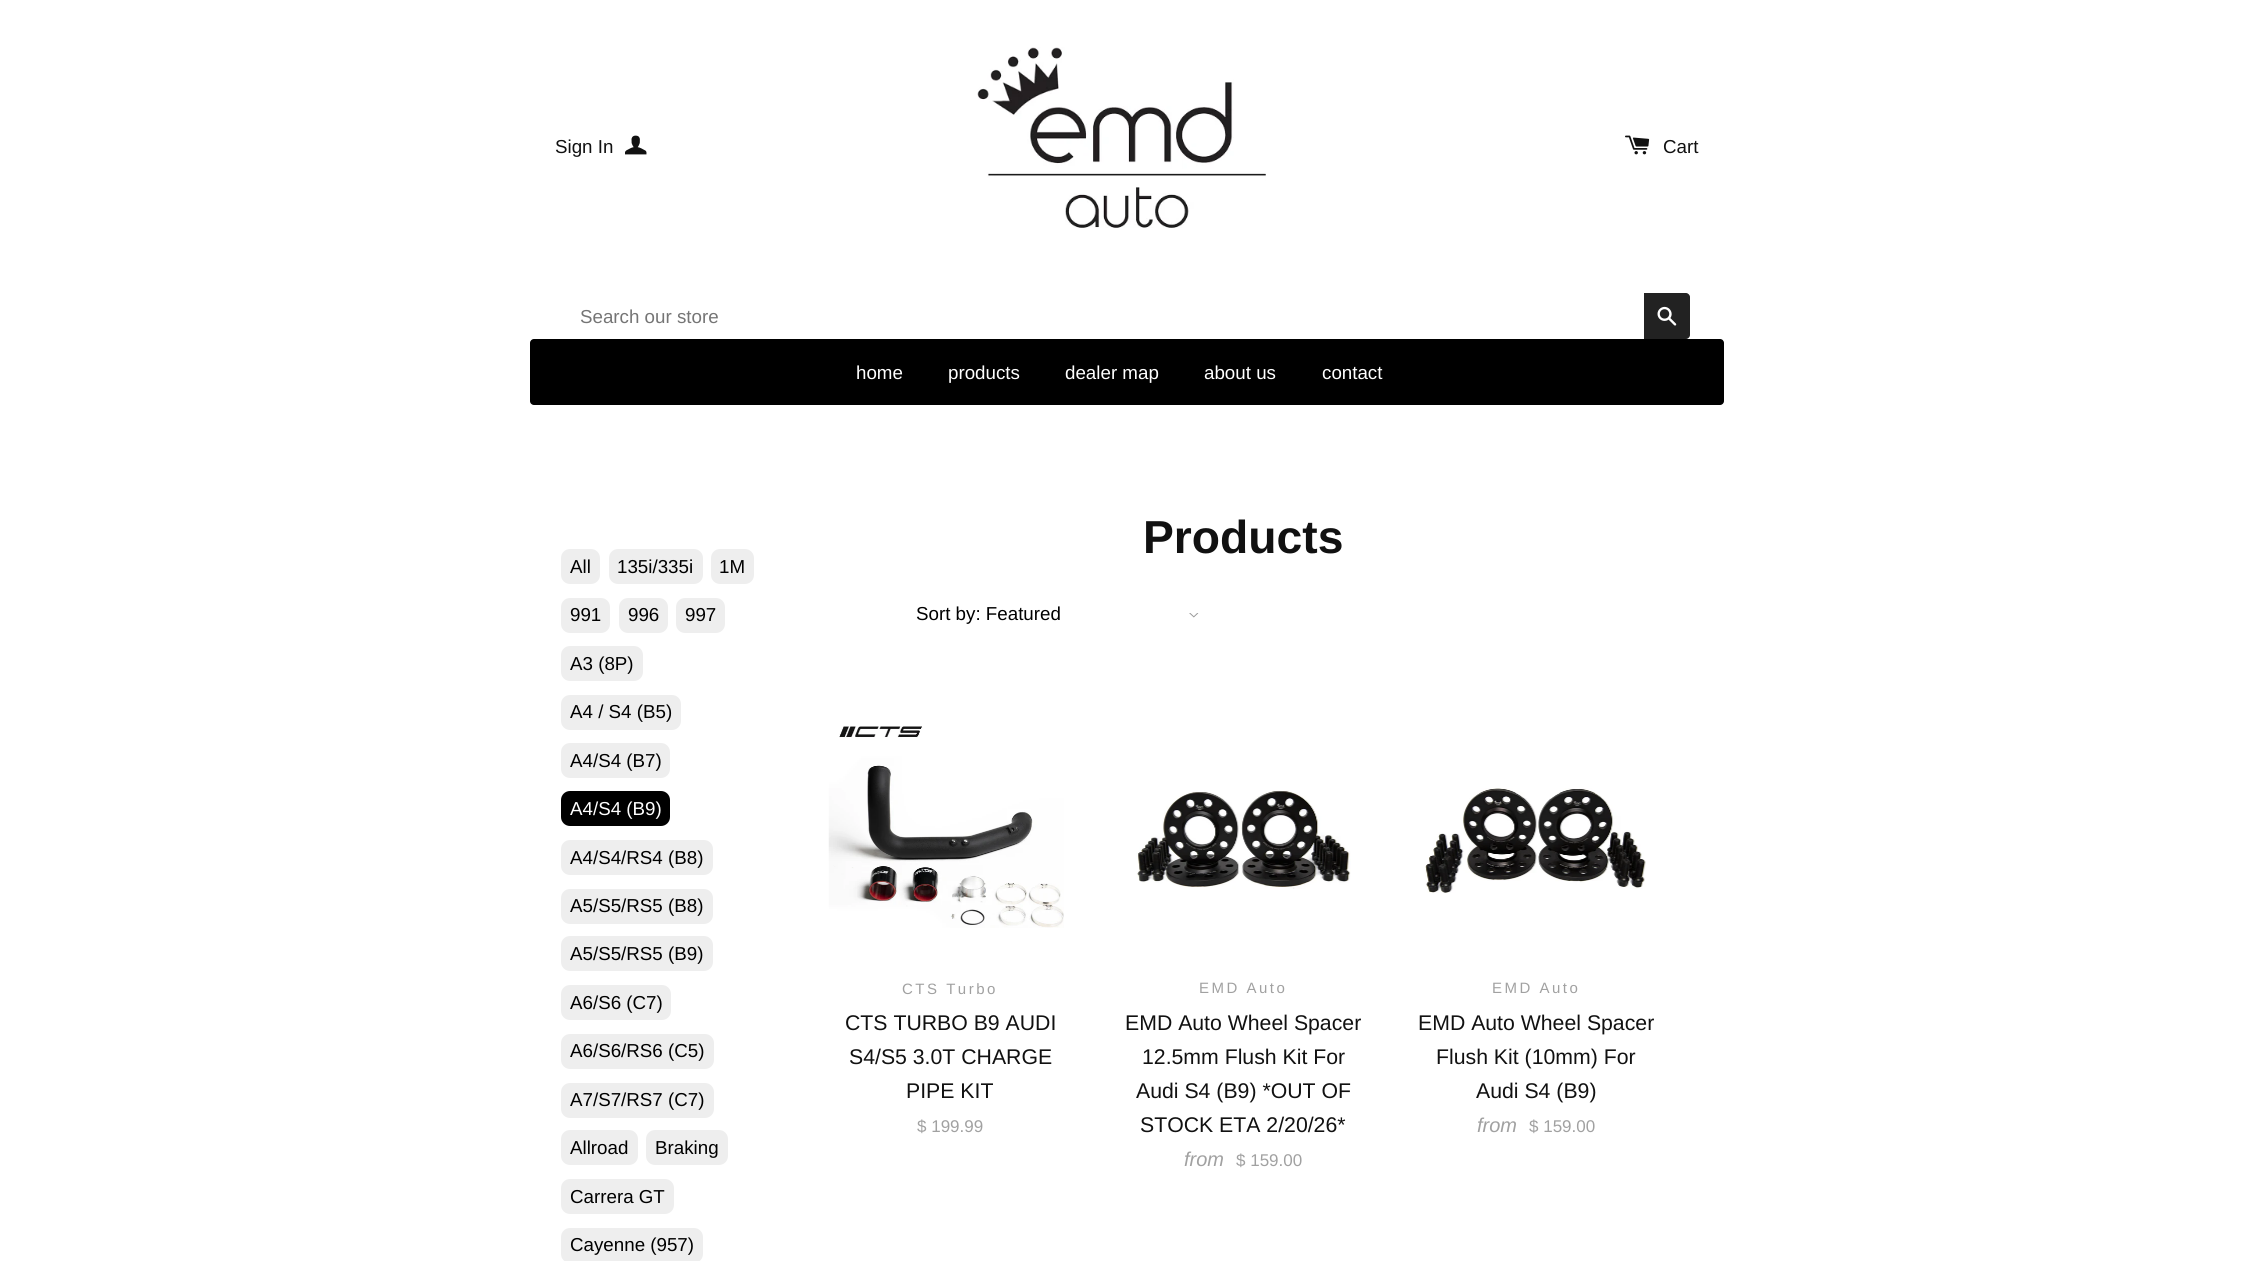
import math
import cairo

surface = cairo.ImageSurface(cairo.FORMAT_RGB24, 2253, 1261)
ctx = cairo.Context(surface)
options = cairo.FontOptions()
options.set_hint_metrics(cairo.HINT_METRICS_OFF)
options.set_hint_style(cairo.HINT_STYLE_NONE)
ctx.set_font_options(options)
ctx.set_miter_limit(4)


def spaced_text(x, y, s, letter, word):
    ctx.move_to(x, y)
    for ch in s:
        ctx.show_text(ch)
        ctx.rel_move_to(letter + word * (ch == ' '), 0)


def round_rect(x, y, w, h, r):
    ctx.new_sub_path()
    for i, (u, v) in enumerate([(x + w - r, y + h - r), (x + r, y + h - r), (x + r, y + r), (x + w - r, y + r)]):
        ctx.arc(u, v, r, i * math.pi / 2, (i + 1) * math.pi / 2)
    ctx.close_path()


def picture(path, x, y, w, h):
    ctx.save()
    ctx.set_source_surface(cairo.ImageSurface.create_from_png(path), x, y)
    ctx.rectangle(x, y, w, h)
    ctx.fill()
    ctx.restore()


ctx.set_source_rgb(1, 1, 1)
ctx.paint()
ctx.select_font_face("Liberation Sans")
ctx.set_font_size(18.75)
ctx.set_source_rgb(0.067, 0.067, 0.067)
ctx.move_to(555, 153)
ctx.show_text("Sign In")
picture("img1.png", 625, 135, 22, 20)
picture("img2.png", 977, 47, 289, 181)
picture("img3.png", 1625, 135, 25, 20)
ctx.move_to(1663, 153)
ctx.show_text("Cart")
ctx.set_source_rgb(0.459, 0.459, 0.459)
ctx.move_to(580, 323)
ctx.show_text("Search our store")
ctx.set_source_rgb(0.133, 0.133, 0.133)
ctx.new_path()
ctx.move_to(1644, 293)
ctx.line_to(1686, 293)
ctx.curve_to(1688, 293, 1690, 295, 1690, 297)
ctx.line_to(1690, 335)
ctx.curve_to(1690, 337, 1688, 339, 1686, 339)
ctx.line_to(1644, 339)
ctx.close_path()
ctx.fill()
picture("img4.png", 1657, 306, 20, 20)
ctx.set_source_rgb(0, 0, 0)
round_rect(530, 339, 1194, 66, 4)
ctx.fill()
ctx.set_source_rgb(1, 1, 1)
ctx.move_to(856, 379)
ctx.show_text("home")
ctx.move_to(948, 379)
ctx.show_text("products")
ctx.move_to(1065, 379)
ctx.show_text("dealer map")
ctx.move_to(1204, 379)
ctx.show_text("about us")
ctx.move_to(1322, 379)
ctx.show_text("contact")
ctx.set_source_rgb(0.933, 0.933, 0.933)
round_rect(561, 549, 39, 35, 9)
ctx.fill()
ctx.set_source_rgb(0, 0, 0)
ctx.move_to(570, 573)
ctx.show_text("All")
ctx.set_source_rgb(0.933, 0.933, 0.933)
round_rect(609, 549, 94, 35, 9)
ctx.fill()
ctx.set_source_rgb(0, 0, 0)
ctx.move_to(617, 573)
ctx.show_text("135i/335i")
ctx.set_source_rgb(0.933, 0.933, 0.933)
round_rect(711, 549, 43, 35, 9)
ctx.fill()
ctx.set_source_rgb(0, 0, 0)
ctx.move_to(719, 573)
ctx.show_text("1M")
ctx.set_source_rgb(0.933, 0.933, 0.933)
round_rect(561, 598, 49, 35, 9)
ctx.fill()
ctx.set_source_rgb(0, 0, 0)
ctx.move_to(570, 621)
ctx.show_text("991")
ctx.set_source_rgb(0.933, 0.933, 0.933)
round_rect(619, 598, 49, 35, 9)
ctx.fill()
ctx.set_source_rgb(0, 0, 0)
ctx.move_to(628, 621)
ctx.show_text("996")
ctx.set_source_rgb(0.933, 0.933, 0.933)
round_rect(676, 598, 49, 35, 9)
ctx.fill()
ctx.set_source_rgb(0, 0, 0)
ctx.move_to(685, 621)
ctx.show_text("997")
ctx.set_source_rgb(0.933, 0.933, 0.933)
round_rect(561, 646, 82, 35, 9)
ctx.fill()
ctx.set_source_rgb(0, 0, 0)
ctx.move_to(570, 670)
ctx.show_text("A3 (8P)")
ctx.set_source_rgb(0.933, 0.933, 0.933)
round_rect(561, 695, 120, 35, 9)
ctx.fill()
ctx.set_source_rgb(0, 0, 0)
ctx.move_to(570, 718)
ctx.show_text("A4 / S4 (B5)")
ctx.set_source_rgb(0.933, 0.933, 0.933)
round_rect(561, 743, 109, 35, 9)
ctx.fill()
ctx.set_source_rgb(0, 0, 0)
ctx.move_to(570, 767)
ctx.show_text("A4/S4 (B7)")
round_rect(561, 791, 109, 35, 9)
ctx.fill()
ctx.set_source_rgb(1, 1, 1)
ctx.move_to(570, 815)
ctx.show_text("A4/S4 (B9)")
ctx.set_source_rgb(0.933, 0.933, 0.933)
round_rect(561, 840, 152, 35, 9)
ctx.fill()
ctx.set_source_rgb(0, 0, 0)
ctx.move_to(570, 864)
ctx.show_text("A4/S4/RS4 (B8)")
ctx.set_source_rgb(0.933, 0.933, 0.933)
round_rect(561, 889, 152, 35, 9)
ctx.fill()
ctx.set_source_rgb(0, 0, 0)
ctx.move_to(570, 912)
ctx.show_text("A5/S5/RS5 (B8)")
ctx.set_source_rgb(0.933, 0.933, 0.933)
round_rect(561, 936, 152, 35, 9)
ctx.fill()
ctx.set_source_rgb(0, 0, 0)
ctx.move_to(570, 960)
ctx.show_text("A5/S5/RS5 (B9)")
ctx.set_source_rgb(0.933, 0.933, 0.933)
round_rect(561, 985, 110, 35, 9)
ctx.fill()
ctx.set_source_rgb(0, 0, 0)
ctx.move_to(570, 1009)
ctx.show_text("A6/S6 (C7)")
ctx.set_source_rgb(0.933, 0.933, 0.933)
round_rect(561, 1034, 153, 35, 9)
ctx.fill()
ctx.set_source_rgb(0, 0, 0)
ctx.move_to(570, 1057)
ctx.show_text("A6/S6/RS6 (C5)")
ctx.set_source_rgb(0.933, 0.933, 0.933)
round_rect(561, 1083, 153, 35, 9)
ctx.fill()
ctx.set_source_rgb(0, 0, 0)
ctx.move_to(570, 1106)
ctx.show_text("A7/S7/RS7 (C7)")
ctx.set_source_rgb(0.933, 0.933, 0.933)
round_rect(561, 1130, 77, 35, 9)
ctx.fill()
ctx.set_source_rgb(0, 0, 0)
ctx.move_to(570, 1154)
ctx.show_text("Allroad")
ctx.set_source_rgb(0.933, 0.933, 0.933)
round_rect(646, 1130, 82, 35, 9)
ctx.fill()
ctx.set_source_rgb(0, 0, 0)
ctx.move_to(655, 1154)
ctx.show_text("Braking")
ctx.set_source_rgb(0.933, 0.933, 0.933)
round_rect(561, 1179, 113, 35, 9)
ctx.fill()
ctx.set_source_rgb(0, 0, 0)
ctx.move_to(570, 1203)
ctx.show_text("Carrera GT")
ctx.set_source_rgb(0.933, 0.933, 0.933)
round_rect(561, 1228, 142, 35, 9)
ctx.fill()
ctx.set_source_rgb(0, 0, 0)
ctx.move_to(570, 1251)
ctx.show_text("Cayenne (957)")
ctx.select_font_face("Liberation Sans", cairo.FONT_SLANT_NORMAL, cairo.FONT_WEIGHT_BOLD)
ctx.set_font_size(46.25)
ctx.set_source_rgb(0.067, 0.067, 0.067)
ctx.move_to(1143, 553)
ctx.show_text("Products")
ctx.select_font_face("Liberation Sans")
ctx.set_font_size(18.75)
ctx.set_source_rgb(0, 0, 0)
ctx.move_to(916, 620)
ctx.show_text("Sort by: Featured")
picture("img5.png", 1189, 613, 10, 5)
picture("img6.png", 828, 726, 236, 202)
ctx.set_font_size(15)
ctx.set_source_rgb(0.631, 0.631, 0.631)
spaced_text(902, 994, "CTS Turbo", 2.5, 0)
ctx.set_font_size(21.25)
ctx.set_source_rgb(0.067, 0.067, 0.067)
ctx.move_to(845, 1030)
ctx.show_text("CTS TURBO B9 AUDI")
ctx.move_to(849, 1064)
ctx.show_text("S4/S5 3.0T CHARGE")
ctx.move_to(906, 1098)
ctx.show_text("PIPE KIT")
ctx.set_font_size(17)
ctx.set_source_rgb(0.631, 0.631, 0.631)
ctx.move_to(917, 1132)
ctx.show_text("$ 199.99")
picture("img7.png", 1136, 790, 215, 99)
ctx.set_font_size(15)
spaced_text(1199, 993, "EMD Auto", 2.5, 0)
ctx.set_font_size(21.25)
ctx.set_source_rgb(0.067, 0.067, 0.067)
ctx.move_to(1125, 1030)
ctx.show_text("EMD Auto Wheel Spacer")
ctx.move_to(1142, 1064)
ctx.show_text("12.5mm Flush Kit For")
ctx.move_to(1136, 1098)
ctx.show_text("Audi S4 (B9) *OUT OF")
ctx.move_to(1140, 1132)
ctx.show_text("STOCK ETA 2/20/26*")
ctx.select_font_face("Liberation Sans", cairo.FONT_SLANT_ITALIC)
ctx.set_font_size(20)
ctx.set_source_rgb(0.631, 0.631, 0.631)
ctx.move_to(1184, 1166)
ctx.show_text("from")
ctx.select_font_face("Liberation Sans")
ctx.set_font_size(17)
ctx.move_to(1236, 1166)
ctx.show_text("$ 159.00")
picture("img8.png", 1425, 788, 221, 105)
ctx.set_font_size(15)
spaced_text(1492, 993, "EMD Auto", 2.5, 0)
ctx.set_font_size(21.25)
ctx.set_source_rgb(0.067, 0.067, 0.067)
ctx.move_to(1418, 1030)
ctx.show_text("EMD Auto Wheel Spacer")
ctx.move_to(1436, 1064)
ctx.show_text("Flush Kit (10mm) For")
ctx.move_to(1476, 1098)
ctx.show_text("Audi S4 (B9)")
ctx.select_font_face("Liberation Sans", cairo.FONT_SLANT_ITALIC)
ctx.set_font_size(20)
ctx.set_source_rgb(0.631, 0.631, 0.631)
ctx.move_to(1477, 1132)
ctx.show_text("from")
ctx.select_font_face("Liberation Sans")
ctx.set_font_size(17)
ctx.move_to(1529, 1132)
ctx.show_text("$ 159.00")
surface.write_to_png("page.png")
